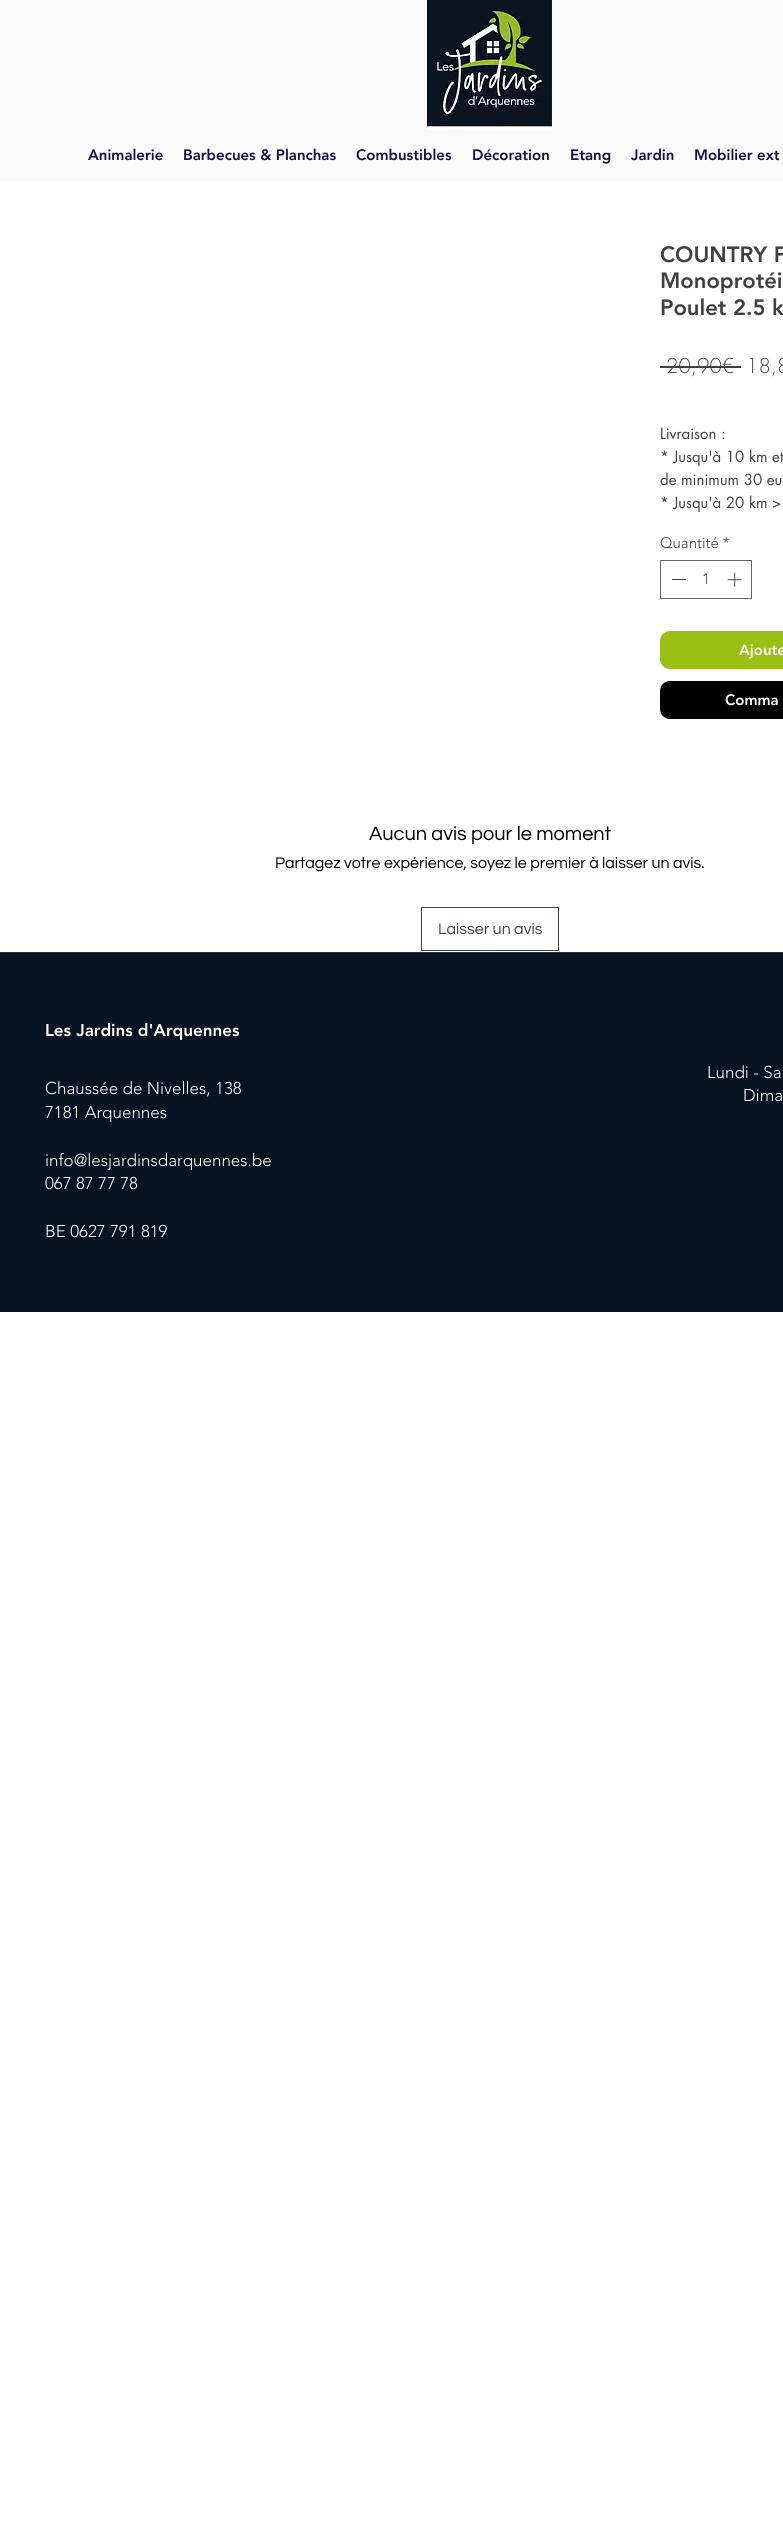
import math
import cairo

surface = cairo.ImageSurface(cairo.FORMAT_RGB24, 783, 2536)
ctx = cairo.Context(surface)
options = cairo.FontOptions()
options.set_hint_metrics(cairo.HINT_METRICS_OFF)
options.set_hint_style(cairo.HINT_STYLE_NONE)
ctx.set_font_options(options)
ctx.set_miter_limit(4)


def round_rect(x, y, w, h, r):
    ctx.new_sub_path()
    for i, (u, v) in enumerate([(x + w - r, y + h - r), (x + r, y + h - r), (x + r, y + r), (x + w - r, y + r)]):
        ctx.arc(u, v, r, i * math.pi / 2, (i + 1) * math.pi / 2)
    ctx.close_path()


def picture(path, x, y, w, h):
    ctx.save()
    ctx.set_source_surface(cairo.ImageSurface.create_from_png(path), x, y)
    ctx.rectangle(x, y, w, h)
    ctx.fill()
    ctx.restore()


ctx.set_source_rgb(1, 1, 1)
ctx.paint()
ctx.set_source_rgb(0.976, 0.976, 0.976)
ctx.rectangle(0, 0, 783, 182)
ctx.fill()
picture("img1.png", 427, 0, 125, 130)
ctx.select_font_face("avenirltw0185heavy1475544 Black")
ctx.set_font_size(15)
ctx.set_source_rgb(0.086, 0.059, 0.263)
ctx.move_to(88, 160)
ctx.show_text("Animalerie")
ctx.move_to(183, 160)
ctx.show_text("Barbecues & Planchas")
ctx.move_to(356, 160)
ctx.show_text("Combustibles")
ctx.move_to(472, 160)
ctx.show_text("Décoration")
ctx.move_to(570, 160)
ctx.show_text("Etang")
ctx.move_to(631, 160)
ctx.show_text("Jardin")
ctx.move_to(694, 160)
ctx.show_text("Mobilier ext")
ctx.set_font_size(22)
ctx.set_source_rgb(0.251, 0.251, 0.251)
ctx.move_to(660, 262)
ctx.show_text("COUNTRY F")
ctx.move_to(660, 288)
ctx.show_text("Monoprotéi")
ctx.move_to(660, 315)
ctx.show_text("Poulet 2.5 k")
ctx.select_font_face("futura Light")
ctx.set_font_size(20)
ctx.move_to(666, 373)
ctx.show_text("20,90€")
ctx.rectangle(660, 366, 81, 2)
ctx.fill()
ctx.move_to(746, 373)
ctx.show_text("18,8")
ctx.select_font_face("futura")
ctx.set_font_size(15)
ctx.move_to(660, 439)
ctx.show_text("Livraison :")
ctx.move_to(660, 462)
ctx.show_text("* Jusqu'à 10 km et")
ctx.move_to(660, 485)
ctx.show_text("de minimum 30 eu")
ctx.move_to(660, 508)
ctx.show_text("* Jusqu'à 20 km >")
ctx.select_font_face("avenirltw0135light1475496 Light")
ctx.move_to(660, 548)
ctx.show_text("Quantité *")
ctx.rectangle(660.5, 560.5, 91, 38)
ctx.set_source_rgb(0.4, 0.4, 0.4)
ctx.set_line_width(1)
ctx.stroke()
ctx.set_source_rgb(0.251, 0.251, 0.251)
ctx.rectangle(672, 579, 14, 1)
ctx.fill()
ctx.move_to(702, 584)
ctx.show_text("1")
picture("img2.png", 727, 572, 15, 15)
ctx.set_source_rgb(0.604, 0.753, 0.078)
round_rect(660, 631, 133, 38, 10)
ctx.fill()
ctx.select_font_face("avenirltw0185heavy1475544 Black")
ctx.set_source_rgb(1, 1, 1)
ctx.move_to(739, 655)
ctx.show_text("Ajoute")
ctx.set_source_rgb(0, 0, 0)
round_rect(660, 681, 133, 38, 10)
ctx.fill()
ctx.set_source_rgb(1, 1, 1)
ctx.move_to(725, 705)
ctx.show_text("Comma")
ctx.select_font_face("Questrial")
ctx.set_font_size(20)
ctx.set_source_rgb(0, 0, 0)
ctx.move_to(369, 840)
ctx.show_text("Aucun avis pour le moment")
ctx.set_font_size(16)
ctx.move_to(275, 868)
ctx.show_text("Partagez votre expérience, soyez le premier à laisser un avis.")
ctx.rectangle(421.5, 907.5, 137, 43)
ctx.set_source_rgb(0.224, 0.278, 0.216)
ctx.stroke()
ctx.move_to(438, 934)
ctx.show_text("Laisser un avis")
ctx.set_source_rgb(0.024, 0.075, 0.133)
ctx.rectangle(0, 953, 783, 359)
ctx.fill()
ctx.set_source_rgb(0.169, 0.212, 0.263)
ctx.rectangle(0, 952, 783, 1)
ctx.fill()
ctx.select_font_face("avenirltw0185heavy1475544 Black")
ctx.set_font_size(17)
ctx.set_source_rgb(1, 1, 1)
ctx.move_to(45, 1036)
ctx.show_text("Les Jardins d'Arquennes")
ctx.select_font_face("avenirltw0135light1475496 Light")
ctx.move_to(45, 1094)
ctx.show_text("Chaussée de Nivelles, 138")
ctx.move_to(45, 1118)
ctx.show_text("7181 Arquennes")
ctx.move_to(45, 1166)
ctx.show_text("info@lesjardinsdarquennes.be")
ctx.move_to(45, 1189)
ctx.show_text("067 87 77 78")
ctx.move_to(45, 1237)
ctx.show_text("BE 0627 791 819")
ctx.move_to(707, 1078)
ctx.show_text("Lundi - Sa")
ctx.move_to(743, 1101)
ctx.show_text("Dima")
surface.write_to_png("page.png")
